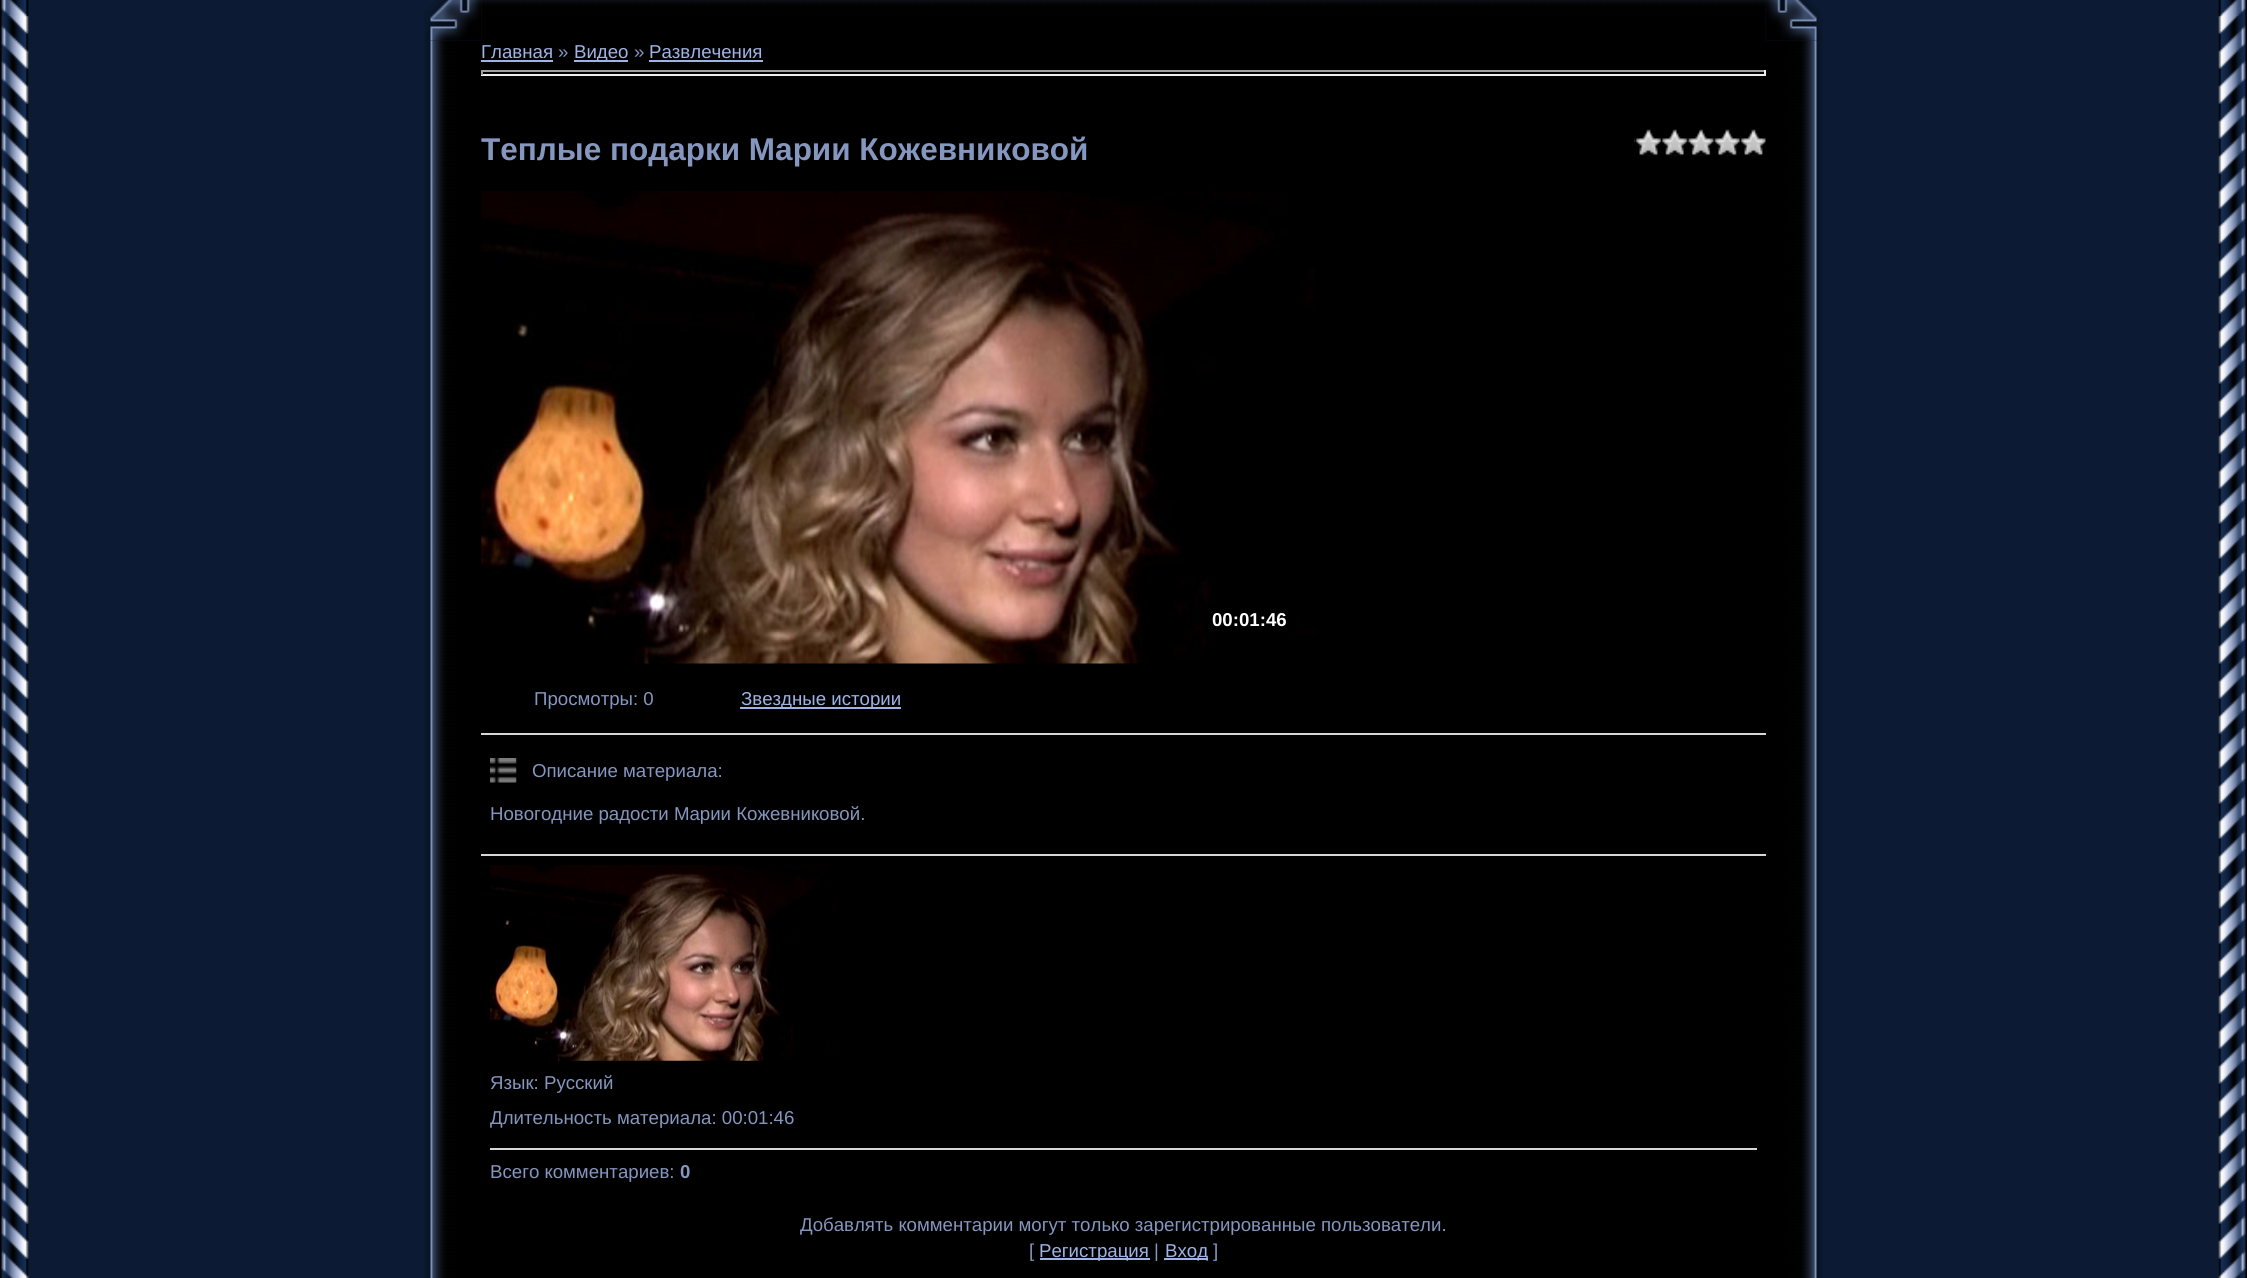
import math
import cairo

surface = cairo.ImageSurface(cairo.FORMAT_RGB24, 2247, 1278)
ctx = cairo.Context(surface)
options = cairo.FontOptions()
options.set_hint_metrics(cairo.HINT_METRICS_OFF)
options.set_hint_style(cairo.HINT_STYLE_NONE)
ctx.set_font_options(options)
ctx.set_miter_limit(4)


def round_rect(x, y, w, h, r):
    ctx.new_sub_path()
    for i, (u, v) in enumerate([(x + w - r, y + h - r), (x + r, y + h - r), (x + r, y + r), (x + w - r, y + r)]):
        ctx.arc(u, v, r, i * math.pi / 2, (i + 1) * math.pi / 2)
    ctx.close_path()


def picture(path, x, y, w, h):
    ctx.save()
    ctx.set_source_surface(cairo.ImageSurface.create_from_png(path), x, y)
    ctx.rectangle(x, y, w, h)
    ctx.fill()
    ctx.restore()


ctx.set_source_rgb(0.047, 0.106, 0.2)
ctx.paint()
picture("img1.png", 0, 0, 29, 1278)
picture("img2.png", 1, 0, 28, 16)
picture("img6.png", 424, 40, 57, 1238)
picture("img3.png", 424, 0, 57, 41)
picture("img4.png", 481, 0, 1285, 40)
picture("img11.png", 1766, 40, 57, 1238)
picture("img5.png", 1766, 0, 57, 41)
ctx.set_source_rgb(0, 0, 0)
ctx.rectangle(481, 40, 1285, 1238)
ctx.fill()
ctx.select_font_face("Liberation Sans")
ctx.set_font_size(18.65)
ctx.set_source_rgb(0.624, 0.706, 0.898)
ctx.move_to(481, 58)
ctx.show_text("Главная")
ctx.rectangle(481, 60, 72, 2)
ctx.fill()
ctx.set_source_rgb(0.522, 0.588, 0.749)
ctx.move_to(558, 58)
ctx.show_text("»")
ctx.set_source_rgb(0.624, 0.706, 0.898)
ctx.rectangle(574, 60, 54, 2)
ctx.fill()
ctx.move_to(574, 58)
ctx.show_text("Видео")
ctx.set_source_rgb(0.522, 0.588, 0.749)
ctx.move_to(634, 58)
ctx.show_text("»")
ctx.set_source_rgb(0.624, 0.706, 0.898)
ctx.move_to(649, 58)
ctx.show_text("Развлечения")
ctx.rectangle(649, 60, 114, 2)
ctx.fill()
ctx.set_source_rgb(0.624, 0.624, 0.624)
ctx.rectangle(481, 70, 1285, 2)
ctx.fill()
ctx.set_source_rgb(0.933, 0.933, 0.933)
ctx.rectangle(1764, 70, 2, 5)
ctx.fill()
ctx.rectangle(481, 74, 1285, 2)
ctx.fill()
ctx.set_source_rgb(0.624, 0.624, 0.624)
ctx.rectangle(481, 70, 2, 5)
ctx.fill()
ctx.select_font_face("Liberation Sans", cairo.FONT_SLANT_NORMAL, cairo.FONT_WEIGHT_BOLD)
ctx.set_font_size(31.5)
ctx.set_source_rgb(0.522, 0.588, 0.749)
ctx.move_to(481, 160)
ctx.show_text("Теплые подарки Марии Кожевниковой")
picture("img7.png", 1634, 129, 132, 27)
picture("img8.png", 481, 191, 836, 473)
ctx.set_source_rgba(0, 0, 0, 0.63)
round_rect(1202, 602, 93, 35, 5)
ctx.fill()
ctx.set_font_size(18.65)
ctx.set_source_rgb(1, 1, 1)
ctx.move_to(1212, 626)
ctx.show_text("00:01:46")
ctx.select_font_face("Liberation Sans")
ctx.set_source_rgb(0.522, 0.588, 0.749)
ctx.move_to(534, 705)
ctx.show_text("Просмотры: 0")
ctx.set_source_rgb(0.624, 0.706, 0.898)
ctx.rectangle(740, 707, 161, 2)
ctx.fill()
ctx.move_to(741, 705)
ctx.show_text("Звездные истории")
ctx.set_source_rgb(0.839, 0.839, 0.839)
ctx.rectangle(481, 733, 1285, 2)
ctx.fill()
picture("img9.png", 490, 758, 27, 25)
ctx.set_source_rgb(0.522, 0.588, 0.749)
ctx.move_to(532, 777)
ctx.show_text("Описание материала:")
ctx.move_to(490, 820)
ctx.show_text("Новогодние радости Марии Кожевниковой.")
ctx.set_source_rgb(0.839, 0.839, 0.839)
ctx.rectangle(481, 854, 1285, 2)
ctx.fill()
picture("img10.png", 490, 865, 348, 196)
ctx.set_source_rgb(0.522, 0.588, 0.749)
ctx.move_to(490, 1089)
ctx.show_text("Язык: Русский")
ctx.move_to(490, 1124)
ctx.show_text("Длительность материала: 00:01:46")
ctx.set_source_rgb(0.839, 0.839, 0.839)
ctx.rectangle(490, 1148, 1267, 2)
ctx.fill()
ctx.set_source_rgb(0.522, 0.588, 0.749)
ctx.move_to(490, 1178)
ctx.show_text("Всего комментариев:")
ctx.select_font_face("Liberation Sans", cairo.FONT_SLANT_NORMAL, cairo.FONT_WEIGHT_BOLD)
ctx.move_to(680, 1178)
ctx.show_text("0")
ctx.select_font_face("Liberation Sans")
ctx.move_to(800, 1231)
ctx.show_text("Добавлять комментарии могут только зарегистрированные пользователи.")
ctx.move_to(1029, 1257)
ctx.show_text("[")
ctx.set_source_rgb(0.624, 0.706, 0.898)
ctx.rectangle(1040, 1258, 110, 2)
ctx.fill()
ctx.move_to(1039, 1257)
ctx.show_text("Регистрация")
ctx.set_source_rgb(0.522, 0.588, 0.749)
ctx.move_to(1154, 1257)
ctx.show_text("|")
ctx.set_source_rgb(0.624, 0.706, 0.898)
ctx.rectangle(1164, 1258, 44, 2)
ctx.fill()
ctx.move_to(1165, 1257)
ctx.show_text("Вход")
ctx.set_source_rgb(0.522, 0.588, 0.749)
ctx.move_to(1213, 1257)
ctx.show_text("]")
picture("img12.png", 2218, 0, 29, 1278)
picture("img13.png", 2218, 0, 25, 16)
surface.write_to_png("page.png")
